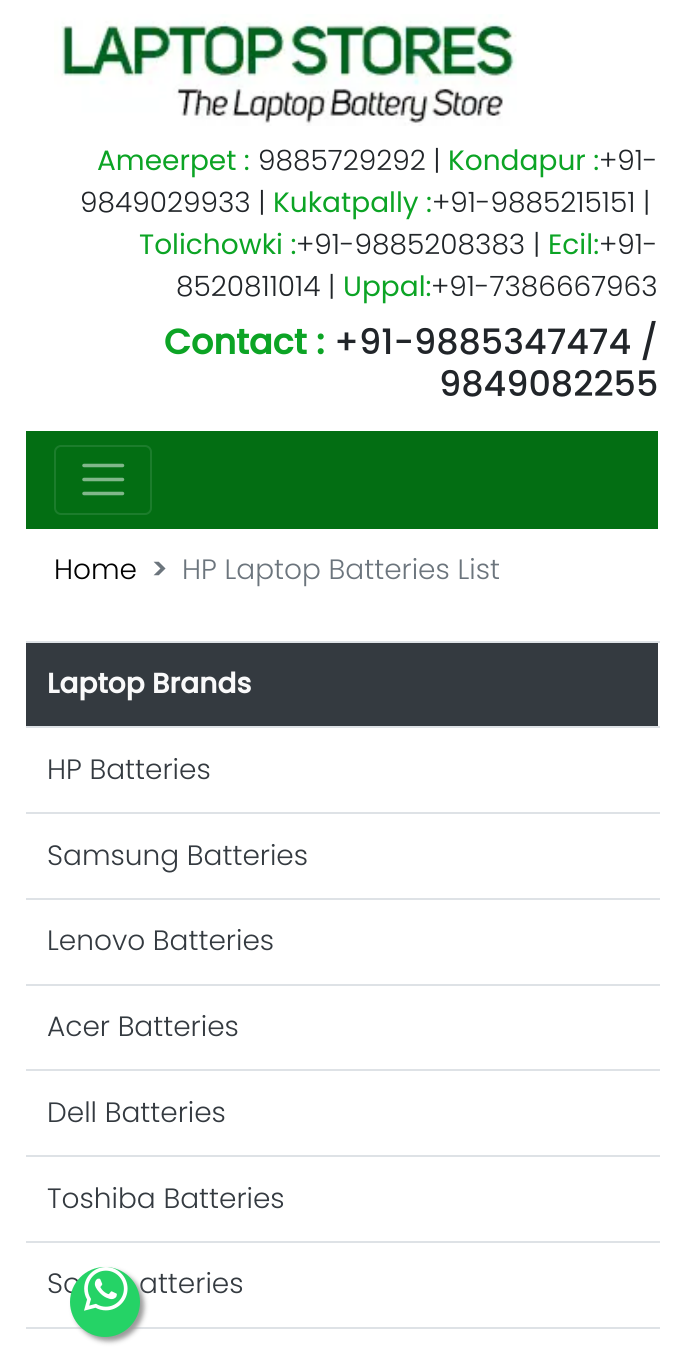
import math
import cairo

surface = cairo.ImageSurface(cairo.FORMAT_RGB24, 683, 1372)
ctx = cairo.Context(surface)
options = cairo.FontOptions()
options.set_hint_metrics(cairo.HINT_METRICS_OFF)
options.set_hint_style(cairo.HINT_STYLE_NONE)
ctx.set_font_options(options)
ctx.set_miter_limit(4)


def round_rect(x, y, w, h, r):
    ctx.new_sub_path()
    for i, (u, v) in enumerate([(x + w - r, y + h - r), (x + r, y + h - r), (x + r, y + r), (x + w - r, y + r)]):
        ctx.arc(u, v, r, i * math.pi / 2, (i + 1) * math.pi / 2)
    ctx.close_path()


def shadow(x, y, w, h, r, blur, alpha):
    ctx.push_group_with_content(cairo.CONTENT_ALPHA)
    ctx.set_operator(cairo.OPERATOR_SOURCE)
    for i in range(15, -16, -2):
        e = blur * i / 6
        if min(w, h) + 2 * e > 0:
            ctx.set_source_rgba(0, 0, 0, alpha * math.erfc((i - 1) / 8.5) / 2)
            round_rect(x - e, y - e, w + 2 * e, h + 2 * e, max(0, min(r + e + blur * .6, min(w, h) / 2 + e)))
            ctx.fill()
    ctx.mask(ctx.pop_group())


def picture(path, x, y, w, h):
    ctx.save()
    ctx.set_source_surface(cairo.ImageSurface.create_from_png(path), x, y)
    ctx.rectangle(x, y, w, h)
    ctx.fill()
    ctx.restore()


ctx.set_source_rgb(1, 1, 1)
ctx.paint()
picture("img1.png", 54, 14, 463, 112)
ctx.select_font_face("Poppins")
ctx.set_font_size(28)
ctx.set_source_rgb(0.047, 0.643, 0.145)
ctx.move_to(97, 170)
ctx.show_text("Ameerpet :")
ctx.select_font_face("Poppins Light")
ctx.set_source_rgb(0.129, 0.145, 0.161)
ctx.move_to(258, 170)
ctx.show_text("9885729292 |")
ctx.select_font_face("Poppins")
ctx.set_source_rgb(0.047, 0.643, 0.145)
ctx.move_to(448, 170)
ctx.show_text("Kondapur :")
ctx.select_font_face("Poppins Light")
ctx.set_source_rgb(0.129, 0.145, 0.161)
ctx.move_to(599, 170)
ctx.show_text("+91-")
ctx.move_to(80, 212)
ctx.show_text("9849029933 |")
ctx.select_font_face("Poppins")
ctx.set_source_rgb(0.047, 0.643, 0.145)
ctx.move_to(273, 212)
ctx.show_text("Kukatpally :")
ctx.select_font_face("Poppins Light")
ctx.set_source_rgb(0.129, 0.145, 0.161)
ctx.move_to(432, 212)
ctx.show_text("+91-9885215151 |")
ctx.select_font_face("Poppins")
ctx.set_source_rgb(0.047, 0.643, 0.145)
ctx.move_to(139, 254)
ctx.show_text("Tolichowki :")
ctx.select_font_face("Poppins Light")
ctx.set_source_rgb(0.129, 0.145, 0.161)
ctx.move_to(296, 254)
ctx.show_text("+91-9885208383 |")
ctx.select_font_face("Poppins")
ctx.set_source_rgb(0.047, 0.643, 0.145)
ctx.move_to(548, 254)
ctx.show_text("Ecil:")
ctx.select_font_face("Poppins Light")
ctx.set_source_rgb(0.129, 0.145, 0.161)
ctx.move_to(599, 254)
ctx.show_text("+91-")
ctx.move_to(176, 296)
ctx.show_text("8520811014 |")
ctx.select_font_face("Poppins")
ctx.set_source_rgb(0.047, 0.643, 0.145)
ctx.move_to(343, 296)
ctx.show_text("Uppal:")
ctx.select_font_face("Poppins Light")
ctx.set_source_rgb(0.129, 0.145, 0.161)
ctx.move_to(431, 296)
ctx.show_text("+91-7386667963")
ctx.select_font_face("Poppins", cairo.FONT_SLANT_NORMAL, cairo.FONT_WEIGHT_BOLD)
ctx.set_font_size(35)
ctx.set_source_rgb(0.047, 0.643, 0.145)
ctx.move_to(164, 354)
ctx.show_text("Contact :")
ctx.select_font_face("Poppins Medium")
ctx.set_source_rgb(0.129, 0.145, 0.161)
ctx.move_to(334, 354)
ctx.show_text("+91-9885347474 /")
ctx.move_to(439, 396)
ctx.show_text("9849082255")
ctx.set_source_rgb(0.012, 0.431, 0.078)
ctx.rectangle(26, 431, 632, 98)
ctx.fill()
round_rect(55, 446, 96, 68, 6)
ctx.set_source_rgb(0.11, 0.49, 0.173)
ctx.stroke()
ctx.new_path()
ctx.move_to(84, 465.5)
ctx.line_to(122.5, 465.5)
ctx.move_to(84, 479.5)
ctx.line_to(122.5, 479.5)
ctx.move_to(84, 493.5)
ctx.line_to(122.5, 493.5)
ctx.set_source_rgb(0.506, 0.718, 0.541)
ctx.set_line_width(3.5)
ctx.set_line_cap(cairo.LINE_CAP_ROUND)
ctx.stroke()
ctx.select_font_face("Poppins Light")
ctx.set_font_size(28)
ctx.set_source_rgb(0, 0, 0)
ctx.move_to(54, 579)
ctx.show_text("Home")
ctx.select_font_face("Poppins", cairo.FONT_SLANT_NORMAL, cairo.FONT_WEIGHT_BOLD)
ctx.set_source_rgb(0.424, 0.459, 0.49)
ctx.move_to(151, 579)
ctx.show_text(">")
ctx.select_font_face("Poppins Light")
ctx.move_to(182, 579)
ctx.show_text("HP Laptop Batteries List")
ctx.set_source_rgb(0.204, 0.227, 0.251)
ctx.rectangle(26, 643, 632, 83)
ctx.fill()
ctx.set_source_rgb(0.871, 0.886, 0.902)
ctx.rectangle(26, 641, 634, 2)
ctx.fill()
ctx.select_font_face("Poppins", cairo.FONT_SLANT_NORMAL, cairo.FONT_WEIGHT_BOLD)
ctx.set_source_rgb(0.973, 0.976, 0.98)
ctx.move_to(47, 693)
ctx.show_text("Laptop Brands")
ctx.set_source_rgb(0.871, 0.886, 0.902)
ctx.rectangle(26, 726, 634, 2)
ctx.fill()
ctx.select_font_face("Poppins Light")
ctx.set_source_rgb(0.204, 0.227, 0.251)
ctx.move_to(47, 779)
ctx.show_text("HP Batteries")
ctx.set_source_rgb(0.871, 0.886, 0.902)
ctx.rectangle(26, 812, 634, 2)
ctx.fill()
ctx.set_source_rgb(0.204, 0.227, 0.251)
ctx.move_to(47, 865)
ctx.show_text("Samsung Batteries")
ctx.set_source_rgb(0.871, 0.886, 0.902)
ctx.rectangle(26, 898, 634, 2)
ctx.fill()
ctx.set_source_rgb(0.204, 0.227, 0.251)
ctx.move_to(47, 950)
ctx.show_text("Lenovo Batteries")
ctx.set_source_rgb(0.871, 0.886, 0.902)
ctx.rectangle(26, 984, 634, 2)
ctx.fill()
ctx.set_source_rgb(0.204, 0.227, 0.251)
ctx.move_to(47, 1036)
ctx.show_text("Acer Batteries")
ctx.set_source_rgb(0.871, 0.886, 0.902)
ctx.rectangle(26, 1069, 634, 2)
ctx.fill()
ctx.set_source_rgb(0.204, 0.227, 0.251)
ctx.move_to(47, 1122)
ctx.show_text("Dell Batteries")
ctx.set_source_rgb(0.871, 0.886, 0.902)
ctx.rectangle(26, 1155, 634, 2)
ctx.fill()
ctx.set_source_rgb(0.204, 0.227, 0.251)
ctx.move_to(47, 1208)
ctx.show_text("Toshiba Batteries")
ctx.set_source_rgb(0.871, 0.886, 0.902)
ctx.rectangle(26, 1241, 634, 2)
ctx.fill()
ctx.set_source_rgb(0.204, 0.227, 0.251)
ctx.move_to(47, 1293)
ctx.show_text("So")
ctx.move_to(139, 1293)
ctx.show_text("atteries")
ctx.set_source_rgb(0.871, 0.886, 0.902)
ctx.rectangle(26, 1327, 634, 2)
ctx.fill()
ctx.set_source_rgb(0.6, 0.6, 0.6)
shadow(74, 1271, 70, 70, 35, 2.5, 1)
ctx.set_source_rgb(0.145, 0.827, 0.4)
ctx.arc(105, 1302, 35, 0, 2 * math.pi)
ctx.fill()
picture("img2.png", 84, 1267, 44, 44)
surface.write_to_png("page.png")
